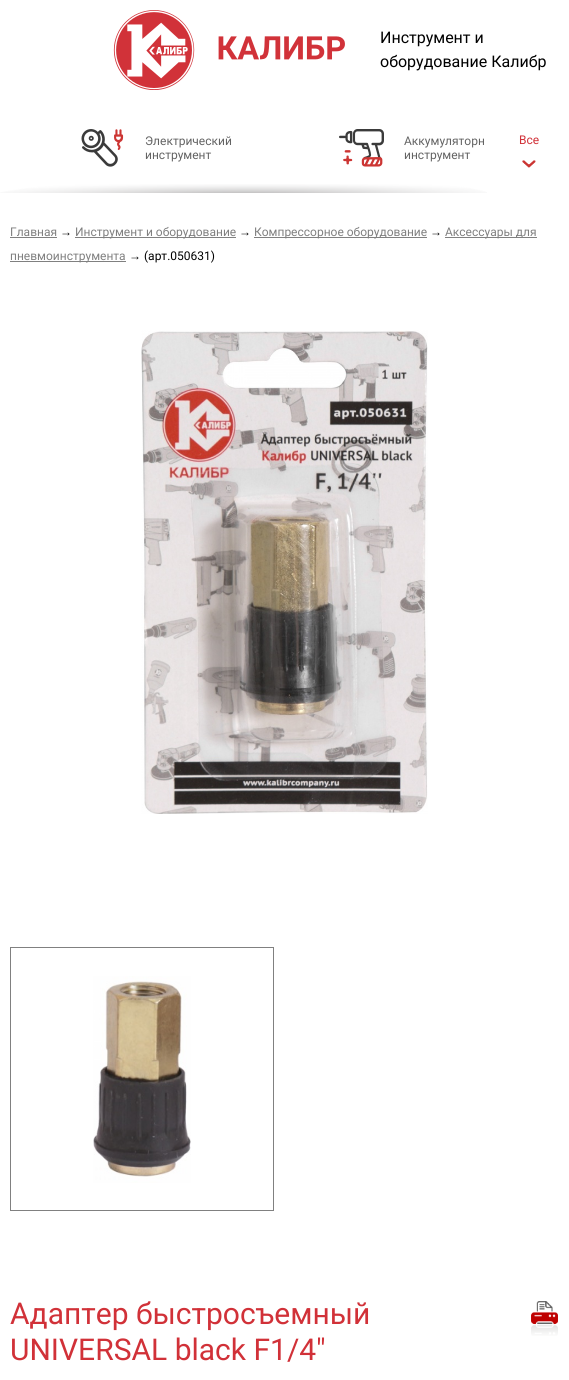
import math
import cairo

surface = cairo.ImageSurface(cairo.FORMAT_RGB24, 569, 1380)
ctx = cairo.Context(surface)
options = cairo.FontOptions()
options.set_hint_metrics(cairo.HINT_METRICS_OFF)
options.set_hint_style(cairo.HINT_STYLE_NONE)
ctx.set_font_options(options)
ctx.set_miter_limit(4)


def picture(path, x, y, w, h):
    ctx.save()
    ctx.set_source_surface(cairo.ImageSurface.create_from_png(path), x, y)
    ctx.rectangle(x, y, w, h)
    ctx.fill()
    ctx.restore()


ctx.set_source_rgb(1, 1, 1)
ctx.paint()
picture("img1.png", 113, 10, 232, 80)
ctx.select_font_face("Roboto")
ctx.set_font_size(16)
ctx.set_source_rgb(0, 0, 0)
ctx.move_to(380, 43)
ctx.show_text("Инструмент и")
ctx.move_to(380, 67)
ctx.show_text("оборудование Калибр")
picture("img2.png", 0, 184, 487, 9)
picture("img3.png", 81, 129, 43, 38)
ctx.set_font_size(12)
ctx.set_source_rgb(0.388, 0.388, 0.388)
ctx.move_to(145, 145)
ctx.show_text("Электрический")
ctx.move_to(145, 159)
ctx.show_text("инструмент")
picture("img4.png", 339, 129, 45, 38)
ctx.move_to(404, 145)
ctx.show_text("Аккумуляторн")
ctx.move_to(404, 159)
ctx.show_text("инструмент")
ctx.set_source_rgb(0.82, 0.192, 0.22)
ctx.move_to(519, 144)
ctx.show_text("Все")
picture("img5.png", 522, 160, 14, 8)
ctx.set_source_rgb(0.502, 0.502, 0.502)
ctx.move_to(10, 236)
ctx.show_text("Главная")
ctx.rectangle(10, 237, 47, 1)
ctx.fill()
ctx.select_font_face("Liberation Sans")
ctx.set_source_rgb(0, 0, 0)
ctx.move_to(60, 236)
ctx.show_text("→")
ctx.set_source_rgb(0.502, 0.502, 0.502)
ctx.rectangle(75, 237, 161, 1)
ctx.fill()
ctx.select_font_face("Roboto")
ctx.move_to(75, 236)
ctx.show_text("Инструмент и оборудование")
ctx.select_font_face("Liberation Sans")
ctx.set_source_rgb(0, 0, 0)
ctx.move_to(239, 236)
ctx.show_text("→")
ctx.set_source_rgb(0.502, 0.502, 0.502)
ctx.rectangle(254, 237, 173, 1)
ctx.fill()
ctx.select_font_face("Roboto")
ctx.move_to(254, 236)
ctx.show_text("Компрессорное оборудование")
ctx.select_font_face("Liberation Sans")
ctx.set_source_rgb(0, 0, 0)
ctx.move_to(430, 236)
ctx.show_text("→")
ctx.set_source_rgb(0.502, 0.502, 0.502)
ctx.rectangle(445, 237, 92, 1)
ctx.fill()
ctx.select_font_face("Roboto")
ctx.move_to(445, 236)
ctx.show_text("Аксессуары для")
ctx.rectangle(10, 261, 116, 1)
ctx.fill()
ctx.move_to(10, 260)
ctx.show_text("пневмоинструмента")
ctx.select_font_face("Liberation Sans")
ctx.set_source_rgb(0, 0, 0)
ctx.move_to(129, 260)
ctx.show_text("→")
ctx.select_font_face("Roboto")
ctx.move_to(144, 260)
ctx.show_text("(арт.050631)")
picture("img6.png", 141, 330, 287, 484)
ctx.rectangle(10.5, 947.5, 263, 263)
ctx.set_source_rgb(0.502, 0.502, 0.502)
ctx.set_line_width(1)
ctx.stroke()
picture("img7.png", 93, 976, 98, 207)
ctx.set_font_size(30)
ctx.set_source_rgb(0.82, 0.192, 0.22)
ctx.move_to(10, 1324)
ctx.show_text("Адаптер быстросъемный")
ctx.move_to(10, 1360)
ctx.show_text("UNIVERSAL black F1/4\"")
picture("img8.png", 531, 1301, 27, 35)
surface.write_to_png("page.png")
